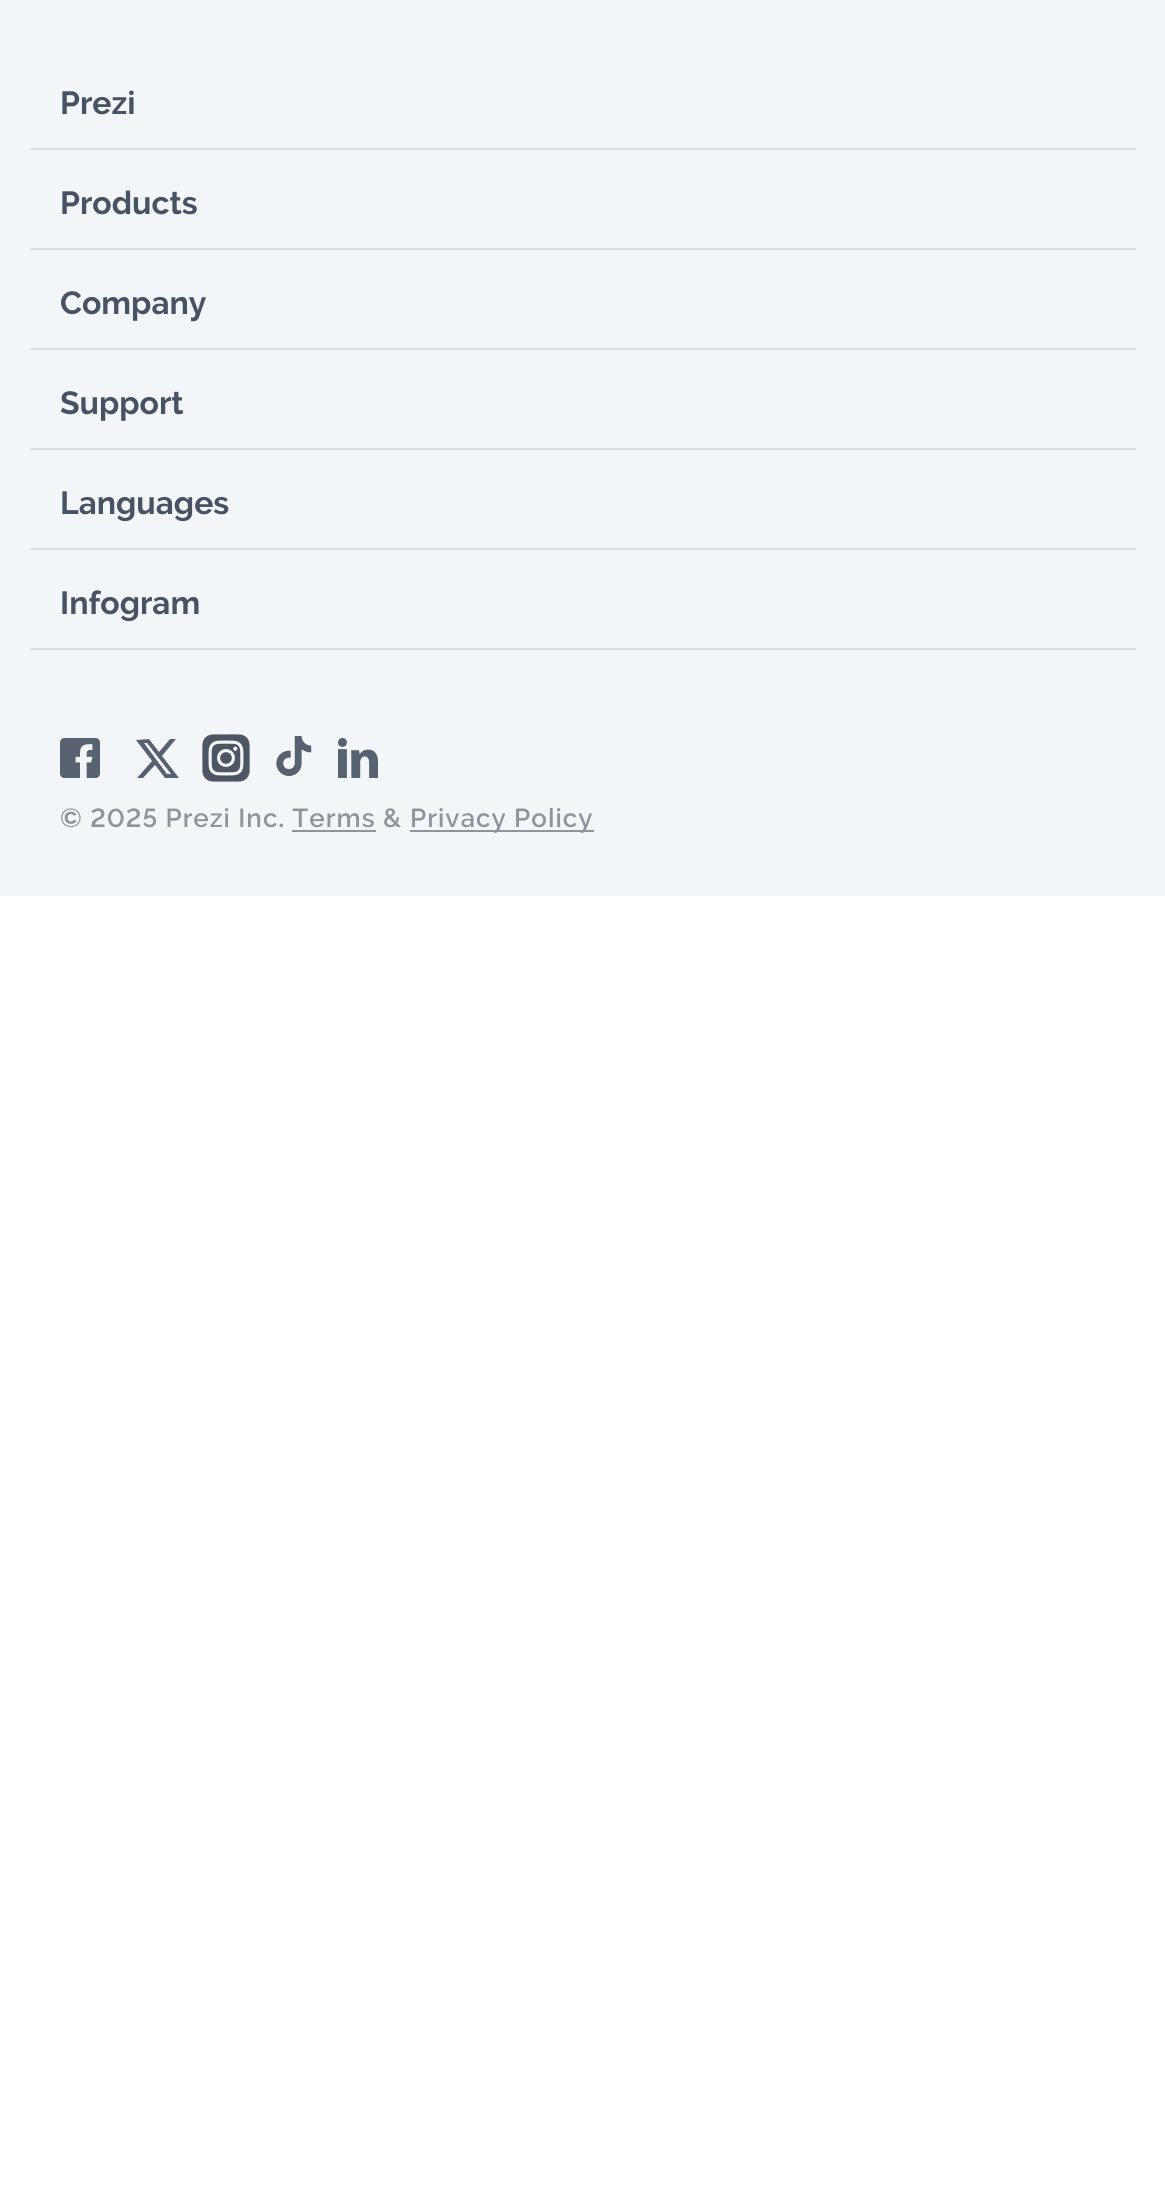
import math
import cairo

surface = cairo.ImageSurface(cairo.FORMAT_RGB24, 1165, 2207)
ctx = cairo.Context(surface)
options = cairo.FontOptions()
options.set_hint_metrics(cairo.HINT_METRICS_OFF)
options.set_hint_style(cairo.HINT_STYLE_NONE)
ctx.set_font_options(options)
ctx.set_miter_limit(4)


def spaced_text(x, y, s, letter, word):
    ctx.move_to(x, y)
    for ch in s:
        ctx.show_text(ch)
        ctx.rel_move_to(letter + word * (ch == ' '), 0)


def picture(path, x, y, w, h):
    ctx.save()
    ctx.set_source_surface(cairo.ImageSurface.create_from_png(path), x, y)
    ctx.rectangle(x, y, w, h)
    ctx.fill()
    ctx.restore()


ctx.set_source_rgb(1, 1, 1)
ctx.paint()
ctx.set_source_rgb(0.953, 0.961, 0.976)
ctx.rectangle(0, 0, 1165, 896)
ctx.fill()
ctx.set_source_rgb(0.859, 0.875, 0.898)
ctx.rectangle(30, 148, 1106, 2)
ctx.fill()
ctx.select_font_face("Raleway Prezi", cairo.FONT_SLANT_NORMAL, cairo.FONT_WEIGHT_BOLD)
ctx.set_font_size(32)
ctx.set_source_rgb(0.278, 0.322, 0.384)
ctx.move_to(60, 114)
ctx.show_text("Prezi")
ctx.set_source_rgb(0.859, 0.875, 0.898)
ctx.rectangle(30, 248, 1106, 2)
ctx.fill()
ctx.set_source_rgb(0.278, 0.322, 0.384)
ctx.move_to(60, 214)
ctx.show_text("Products")
ctx.set_source_rgb(0.859, 0.875, 0.898)
ctx.rectangle(30, 348, 1106, 2)
ctx.fill()
ctx.set_source_rgb(0.278, 0.322, 0.384)
ctx.move_to(60, 314)
ctx.show_text("Company")
ctx.set_source_rgb(0.859, 0.875, 0.898)
ctx.rectangle(30, 448, 1106, 2)
ctx.fill()
ctx.set_source_rgb(0.278, 0.322, 0.384)
ctx.move_to(60, 414)
ctx.show_text("Support")
ctx.set_source_rgb(0.859, 0.875, 0.898)
ctx.rectangle(30, 548, 1106, 2)
ctx.fill()
ctx.set_source_rgb(0.278, 0.322, 0.384)
ctx.move_to(60, 514)
ctx.show_text("Languages")
ctx.set_source_rgb(0.859, 0.875, 0.898)
ctx.rectangle(30, 648, 1106, 2)
ctx.fill()
ctx.set_source_rgb(0.278, 0.322, 0.384)
ctx.move_to(60, 614)
ctx.show_text("Infogram")
picture("img1.png", 60, 738, 40, 40)
ctx.set_source_rgb(0.341, 0.38, 0.435)
ctx.new_path()
ctx.move_to(137, 778)
ctx.line_to(152, 761)
ctx.line_to(136, 740)
ctx.line_to(149, 739)
ctx.line_to(159, 752)
ctx.line_to(170, 739)
ctx.line_to(176, 739)
ctx.line_to(162, 756)
ctx.line_to(179, 778)
ctx.line_to(165, 778)
ctx.line_to(155, 765)
ctx.line_to(143, 778)
ctx.close_path()
ctx.move_to(171, 774)
ctx.line_to(147, 743)
ctx.line_to(144, 743)
ctx.line_to(167, 774)
ctx.close_path()
ctx.fill()
picture("img2.png", 202, 734, 48, 48)
picture("img3.png", 276, 736, 36, 40)
picture("img4.png", 338, 738, 40, 40)
ctx.select_font_face("Raleway Prezi SemiBold")
ctx.set_font_size(26)
ctx.set_source_rgb(0.557, 0.576, 0.612)
spaced_text(60, 827, "© 2025 Prezi Inc. Terms &", 1, 0)
ctx.rectangle(410, 830, 184, 2)
ctx.fill()
spaced_text(410, 827, "Privacy Policy", 1, 0)
ctx.rectangle(292, 830, 84, 2)
ctx.fill()
surface.write_to_png("page.png")
